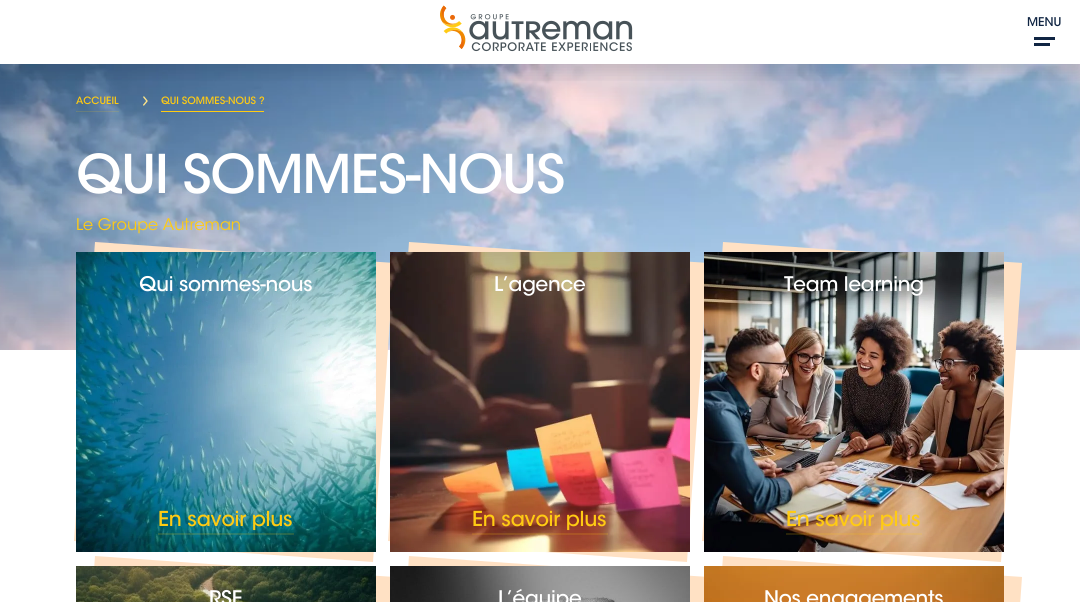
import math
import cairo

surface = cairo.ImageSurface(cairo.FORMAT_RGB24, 1080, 602)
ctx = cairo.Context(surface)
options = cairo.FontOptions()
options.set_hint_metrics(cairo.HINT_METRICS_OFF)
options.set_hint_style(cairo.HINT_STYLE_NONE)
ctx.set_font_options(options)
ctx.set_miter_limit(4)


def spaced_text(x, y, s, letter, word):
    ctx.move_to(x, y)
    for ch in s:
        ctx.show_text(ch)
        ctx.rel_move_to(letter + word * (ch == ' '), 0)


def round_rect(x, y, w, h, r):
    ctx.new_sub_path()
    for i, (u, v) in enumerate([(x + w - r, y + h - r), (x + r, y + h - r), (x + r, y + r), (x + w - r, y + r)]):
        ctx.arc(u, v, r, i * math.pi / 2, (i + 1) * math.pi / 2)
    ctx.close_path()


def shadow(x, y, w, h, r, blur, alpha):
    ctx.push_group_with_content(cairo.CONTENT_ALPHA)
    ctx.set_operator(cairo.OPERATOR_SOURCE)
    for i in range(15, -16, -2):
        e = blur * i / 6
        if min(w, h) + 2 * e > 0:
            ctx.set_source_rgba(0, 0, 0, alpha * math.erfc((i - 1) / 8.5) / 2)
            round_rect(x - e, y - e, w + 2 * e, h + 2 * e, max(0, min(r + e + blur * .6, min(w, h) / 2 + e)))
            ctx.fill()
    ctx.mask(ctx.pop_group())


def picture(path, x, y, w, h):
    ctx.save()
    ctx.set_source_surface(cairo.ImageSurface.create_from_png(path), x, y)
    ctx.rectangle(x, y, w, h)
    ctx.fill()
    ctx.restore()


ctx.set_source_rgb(1, 1, 1)
ctx.paint()
picture("img2.png", 0, 64, 1080, 286)
picture("img3.png", 143, 96, 5, 10)
ctx.save()
ctx.rectangle(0, 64, 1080, 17)
ctx.clip()
ctx.set_source_rgb(0.063, 0.145, 0.263)
shadow(0, 8, 1080, 64, 0, 8.5, 0.15)
ctx.restore()
picture("img1.png", 440, 5, 193, 47)
ctx.select_font_face("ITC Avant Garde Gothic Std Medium")
ctx.set_font_size(12)
ctx.set_source_rgb(0.063, 0.145, 0.263)
ctx.move_to(1027, 26)
ctx.show_text("MENU")
ctx.rectangle(1034, 37, 21, 3)
ctx.fill()
ctx.rectangle(1034, 43, 16, 3)
ctx.fill()
ctx.set_font_size(10)
ctx.set_source_rgb(1, 0.796, 0.078)
ctx.move_to(76, 104)
ctx.show_text("ACCUEIL")
ctx.set_source_rgba(1, 0.796, 0.078, 0.15)
ctx.rectangle(76, 111, 43, 1)
ctx.fill()
ctx.set_source_rgb(1, 0.796, 0.078)
ctx.move_to(161, 104)
ctx.show_text("QUI SOMMES-NOUS ?")
ctx.rectangle(161, 111, 103, 1)
ctx.fill()
ctx.set_font_size(53)
ctx.set_source_rgb(1, 1, 1)
spaced_text(76, 193, "QUI SOMMES-NOUS", -1, 0)
ctx.select_font_face("ITC Avant Garde Gothic Std Light")
ctx.set_font_size(16)
ctx.set_source_rgb(1, 0.796, 0.078)
ctx.move_to(76, 230)
ctx.show_text("Le Groupe Autreman")
ctx.set_source_rgb(1, 0.882, 0.769)
ctx.new_path()
ctx.move_to(95, 242)
ctx.line_to(394, 263)
ctx.line_to(373, 562)
ctx.line_to(74, 541)
ctx.close_path()
ctx.fill()
picture("img4.png", 76, 252, 300, 300)
ctx.select_font_face("ITC Avant Garde Gothic Std Medium")
ctx.set_font_size(20)
ctx.set_source_rgb(1, 1, 1)
spaced_text(139, 291, "Qui sommes-nous", -0.25, 0)
ctx.set_font_size(20.5)
ctx.set_source_rgb(1, 0.796, 0.078)
spaced_text(158, 526, "En savoir plus", -0.25, 0)
ctx.set_source_rgba(1, 0.796, 0.078, 0.15)
ctx.rectangle(158, 533, 136, 2)
ctx.fill()
ctx.set_source_rgb(1, 0.882, 0.769)
ctx.new_path()
ctx.move_to(409, 242)
ctx.line_to(708, 263)
ctx.line_to(687, 562)
ctx.line_to(388, 541)
ctx.close_path()
ctx.fill()
picture("img5.png", 390, 252, 300, 300)
ctx.set_font_size(20)
ctx.set_source_rgb(1, 1, 1)
spaced_text(494, 291, "L’agence", -0.25, 0)
ctx.set_font_size(20.5)
ctx.set_source_rgb(1, 0.796, 0.078)
spaced_text(472, 526, "En savoir plus", -0.25, 0)
ctx.set_source_rgba(1, 0.796, 0.078, 0.15)
ctx.rectangle(472, 533, 136, 2)
ctx.fill()
ctx.set_source_rgb(1, 0.882, 0.769)
ctx.new_path()
ctx.move_to(723, 242)
ctx.line_to(1022, 263)
ctx.line_to(1001, 562)
ctx.line_to(702, 541)
ctx.close_path()
ctx.fill()
picture("img6.png", 704, 252, 300, 300)
ctx.set_font_size(20)
ctx.set_source_rgb(1, 1, 1)
spaced_text(784, 291, "Team learning", -0.25, 0)
ctx.set_font_size(20.5)
ctx.set_source_rgb(1, 0.796, 0.078)
spaced_text(786, 526, "En savoir plus", -0.25, 0)
ctx.set_source_rgba(1, 0.796, 0.078, 0.15)
ctx.rectangle(786, 533, 136, 2)
ctx.fill()
ctx.set_source_rgb(1, 0.882, 0.769)
ctx.new_path()
ctx.move_to(95, 556)
ctx.line_to(394, 577)
ctx.line_to(373, 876)
ctx.line_to(74, 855)
ctx.close_path()
ctx.fill()
picture("img7.png", 76, 566, 300, 36)
ctx.set_font_size(20)
ctx.set_source_rgb(1, 1, 1)
spaced_text(209, 605, "RSE", -0.25, 0)
ctx.set_source_rgb(1, 0.882, 0.769)
ctx.new_path()
ctx.move_to(409, 556)
ctx.line_to(708, 577)
ctx.line_to(687, 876)
ctx.line_to(388, 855)
ctx.close_path()
ctx.fill()
picture("img8.png", 390, 566, 300, 36)
ctx.set_source_rgb(1, 1, 1)
spaced_text(498, 605, "L’équipe", -0.25, 0)
ctx.set_source_rgb(1, 0.882, 0.769)
ctx.new_path()
ctx.move_to(723, 556)
ctx.line_to(1022, 577)
ctx.line_to(1001, 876)
ctx.line_to(702, 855)
ctx.close_path()
ctx.fill()
picture("img9.png", 704, 566, 300, 36)
ctx.set_source_rgb(1, 1, 1)
spaced_text(764, 605, "Nos engagements", -0.25, 0)
surface.write_to_png("page.png")
